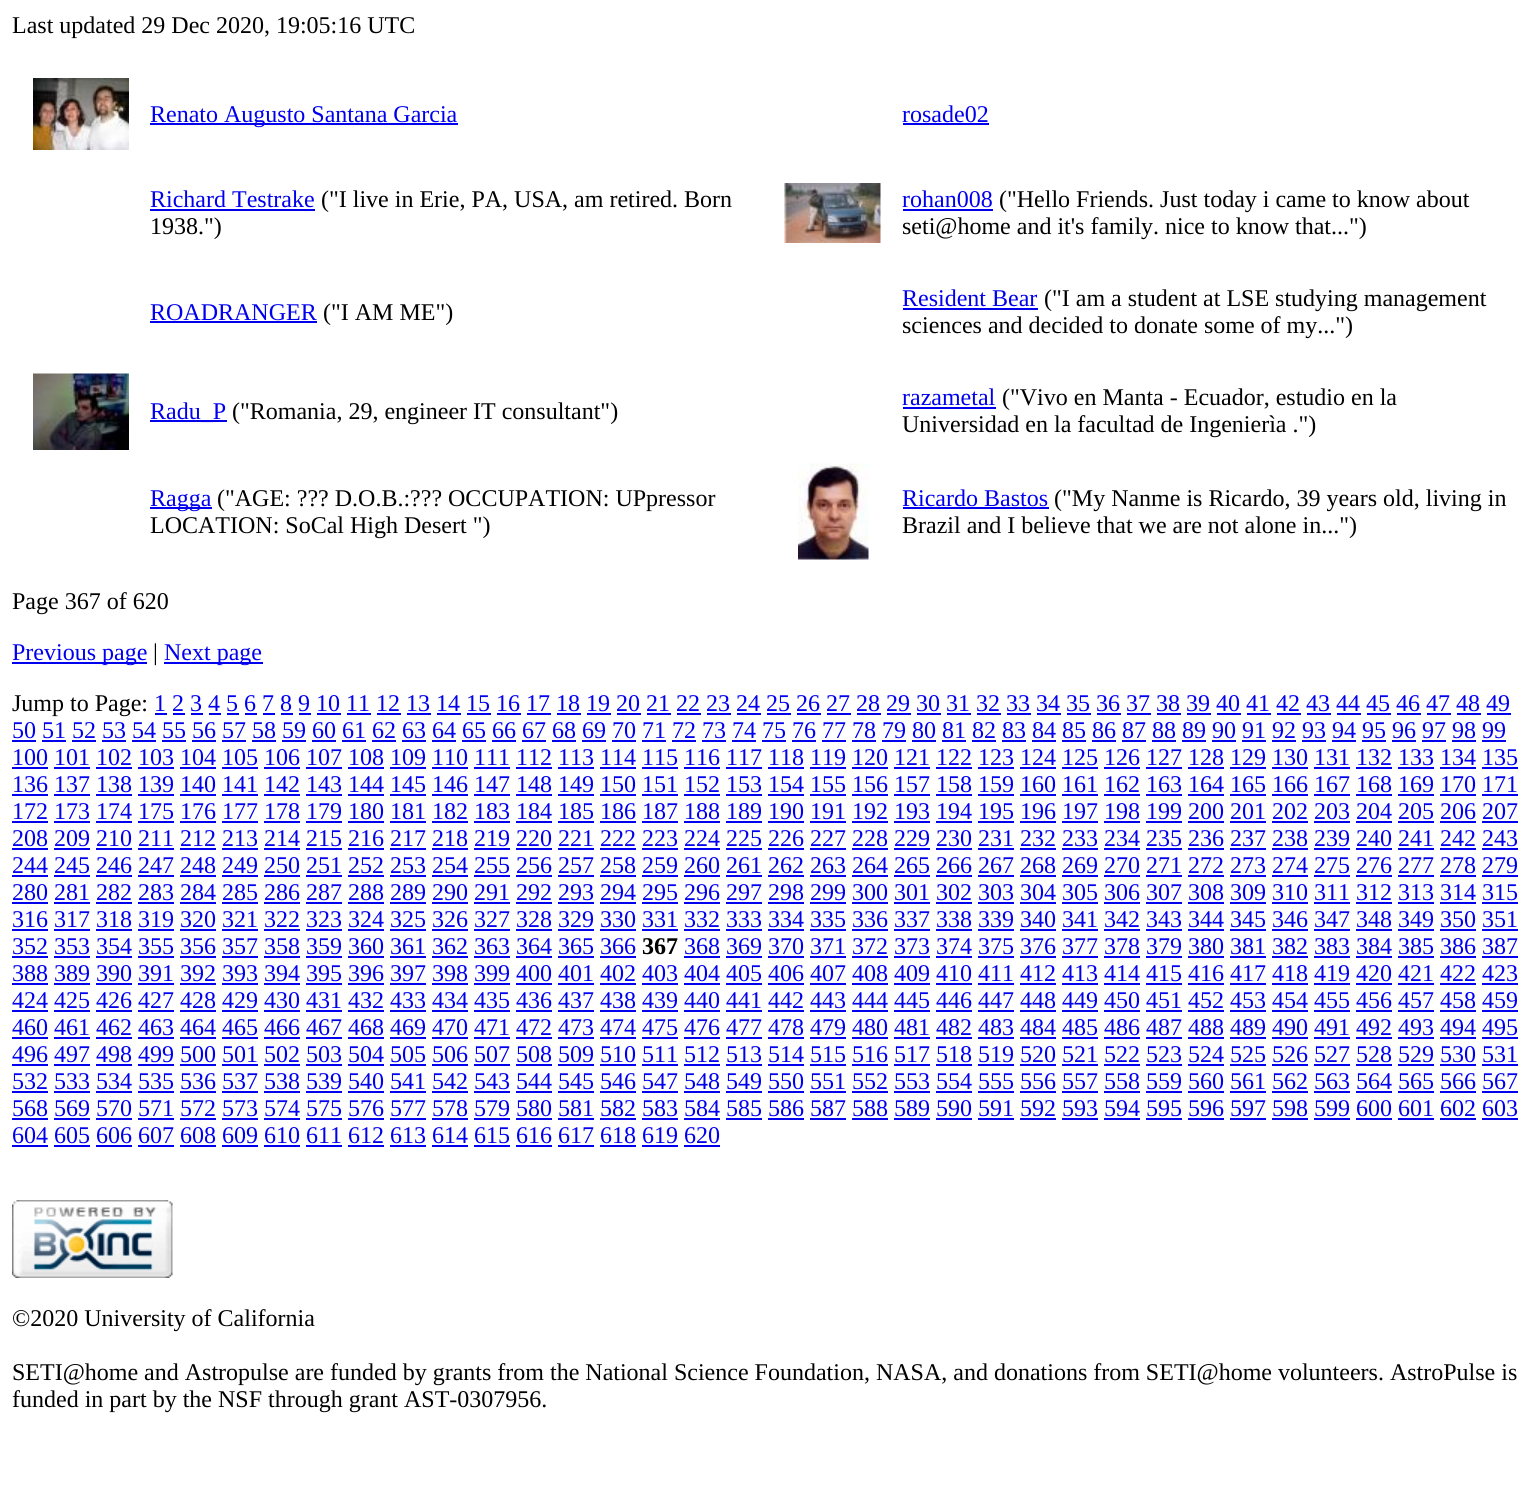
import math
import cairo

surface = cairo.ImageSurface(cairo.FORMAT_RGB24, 1531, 1486)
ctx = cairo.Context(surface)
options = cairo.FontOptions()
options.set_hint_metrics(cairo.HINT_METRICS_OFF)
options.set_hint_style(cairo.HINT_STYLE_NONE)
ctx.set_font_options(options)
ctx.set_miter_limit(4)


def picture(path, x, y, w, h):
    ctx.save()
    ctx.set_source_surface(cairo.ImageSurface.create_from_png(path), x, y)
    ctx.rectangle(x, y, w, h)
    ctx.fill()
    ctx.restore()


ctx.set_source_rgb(1, 1, 1)
ctx.paint()
ctx.select_font_face("Liberation Serif")
ctx.set_font_size(24)
ctx.set_source_rgb(0, 0, 0)
ctx.move_to(12, 33)
ctx.show_text("Last updated 29 Dec 2020, 19:05:16 UTC")
picture("img1.png", 33, 78, 96, 72)
ctx.set_source_rgb(0, 0, 0.933)
ctx.rectangle(150, 123, 308, 2)
ctx.fill()
ctx.move_to(150, 122)
ctx.show_text("Renato Augusto Santana Garcia")
ctx.move_to(902, 122)
ctx.show_text("rosade02")
ctx.rectangle(903, 123, 86, 2)
ctx.fill()
ctx.move_to(150, 207)
ctx.show_text("Richard Testrake")
ctx.rectangle(150, 209, 165, 2)
ctx.fill()
ctx.set_source_rgb(0, 0, 0)
ctx.move_to(321, 207)
ctx.show_text("(\"I live in Erie, PA, USA, am retired. Born")
ctx.move_to(150, 234)
ctx.show_text("1938.\")")
picture("img2.png", 784, 183, 97, 60)
ctx.set_source_rgb(0, 0, 0.933)
ctx.move_to(902, 207)
ctx.show_text("rohan008")
ctx.rectangle(903, 209, 90, 2)
ctx.fill()
ctx.set_source_rgb(0, 0, 0)
ctx.move_to(999, 207)
ctx.show_text("(\"Hello Friends. Just today i came to know about")
ctx.move_to(902, 234)
ctx.show_text("seti@home and it's family. nice to know that...\")")
ctx.set_source_rgb(0, 0, 0.933)
ctx.move_to(150, 320)
ctx.show_text("ROADRANGER")
ctx.rectangle(150, 321, 167, 2)
ctx.fill()
ctx.set_source_rgb(0, 0, 0)
ctx.move_to(323, 320)
ctx.show_text("(\"I AM ME\")")
ctx.set_source_rgb(0, 0, 0.933)
ctx.move_to(902, 306)
ctx.show_text("Resident Bear")
ctx.rectangle(903, 308, 135, 2)
ctx.fill()
ctx.set_source_rgb(0, 0, 0)
ctx.move_to(1044, 306)
ctx.show_text("(\"I am a student at LSE studying management")
ctx.move_to(902, 333)
ctx.show_text("sciences and decided to donate some of my...\")")
picture("img3.png", 33, 373, 96, 77)
ctx.set_source_rgb(0, 0, 0.933)
ctx.rectangle(150, 420, 77, 2)
ctx.fill()
ctx.move_to(150, 419)
ctx.show_text("Radu_P")
ctx.set_source_rgb(0, 0, 0)
ctx.move_to(232, 419)
ctx.show_text("(\"Romania, 29, engineer IT consultant\")")
ctx.set_source_rgb(0, 0, 0.933)
ctx.move_to(902, 405)
ctx.show_text("razametal")
ctx.rectangle(903, 407, 93, 2)
ctx.fill()
ctx.set_source_rgb(0, 0, 0)
ctx.move_to(1002, 405)
ctx.show_text("(\"Vivo en Manta - Ecuador, estudio en la")
ctx.move_to(902, 432)
ctx.show_text("Universidad en la facultad de Ingenierìa .\")")
ctx.set_source_rgb(0, 0, 0.933)
ctx.rectangle(150, 507, 62, 2)
ctx.fill()
ctx.move_to(150, 506)
ctx.show_text("Ragga")
ctx.set_source_rgb(0, 0, 0)
ctx.move_to(217, 506)
ctx.show_text("(\"AGE: ??? D.O.B.:??? OCCUPATION: UPpressor")
ctx.move_to(150, 533)
ctx.show_text("LOCATION: SoCal High Desert \")")
picture("img4.png", 798, 463, 71, 97)
ctx.set_source_rgb(0, 0, 0.933)
ctx.move_to(902, 506)
ctx.show_text("Ricardo Bastos")
ctx.rectangle(903, 507, 146, 2)
ctx.fill()
ctx.set_source_rgb(0, 0, 0)
ctx.move_to(1054, 506)
ctx.show_text("(\"My Nanme is Ricardo, 39 years old, living in")
ctx.move_to(902, 533)
ctx.show_text("Brazil and I believe that we are not alone in...\")")
ctx.move_to(12, 609)
ctx.show_text("Page 367 of 620")
ctx.set_source_rgb(0, 0, 0.933)
ctx.rectangle(12, 662, 135, 2)
ctx.fill()
ctx.move_to(12, 660)
ctx.show_text("Previous page")
ctx.set_source_rgb(0, 0, 0)
ctx.move_to(153, 660)
ctx.show_text("|")
ctx.set_source_rgb(0, 0, 0.933)
ctx.rectangle(164, 662, 99, 2)
ctx.fill()
ctx.move_to(164, 660)
ctx.show_text("Next page")
ctx.set_source_rgb(0, 0, 0)
ctx.move_to(12, 711)
ctx.show_text("Jump to Page:")
ctx.set_source_rgb(0, 0, 0.933)
ctx.move_to(154, 711)
ctx.show_text("1 2 3 4 5 6 7 8 9 10 11 12 13 14 15 16 17 18 19 20 21 22 23 24 25 26 27 28 29 30 31 32 33 34 35 36 37 38 39 40 41 42 43 44 45 46 47 48 49")
ctx.rectangle(155, 713, 12, 2)
ctx.fill()
ctx.rectangle(173, 713, 12, 2)
ctx.fill()
ctx.rectangle(191, 713, 12, 2)
ctx.fill()
ctx.rectangle(209, 713, 12, 2)
ctx.fill()
ctx.rectangle(227, 713, 12, 2)
ctx.fill()
ctx.rectangle(245, 713, 12, 2)
ctx.fill()
ctx.rectangle(263, 713, 12, 2)
ctx.fill()
ctx.rectangle(281, 713, 12, 2)
ctx.fill()
ctx.rectangle(299, 713, 12, 2)
ctx.fill()
ctx.rectangle(317, 713, 24, 2)
ctx.fill()
ctx.rectangle(347, 713, 24, 2)
ctx.fill()
ctx.rectangle(377, 713, 24, 2)
ctx.fill()
ctx.rectangle(407, 713, 24, 2)
ctx.fill()
ctx.rectangle(437, 713, 24, 2)
ctx.fill()
ctx.rectangle(467, 713, 24, 2)
ctx.fill()
ctx.rectangle(497, 713, 24, 2)
ctx.fill()
ctx.rectangle(527, 713, 24, 2)
ctx.fill()
ctx.rectangle(557, 713, 24, 2)
ctx.fill()
ctx.rectangle(587, 713, 24, 2)
ctx.fill()
ctx.rectangle(617, 713, 24, 2)
ctx.fill()
ctx.rectangle(647, 713, 24, 2)
ctx.fill()
ctx.rectangle(677, 713, 24, 2)
ctx.fill()
ctx.rectangle(707, 713, 24, 2)
ctx.fill()
ctx.rectangle(737, 713, 24, 2)
ctx.fill()
ctx.rectangle(767, 713, 24, 2)
ctx.fill()
ctx.rectangle(797, 713, 24, 2)
ctx.fill()
ctx.rectangle(827, 713, 24, 2)
ctx.fill()
ctx.rectangle(857, 713, 24, 2)
ctx.fill()
ctx.rectangle(887, 713, 24, 2)
ctx.fill()
ctx.rectangle(917, 713, 24, 2)
ctx.fill()
ctx.rectangle(947, 713, 24, 2)
ctx.fill()
ctx.rectangle(977, 713, 24, 2)
ctx.fill()
ctx.rectangle(1007, 713, 24, 2)
ctx.fill()
ctx.rectangle(1037, 713, 24, 2)
ctx.fill()
ctx.rectangle(1067, 713, 24, 2)
ctx.fill()
ctx.rectangle(1097, 713, 24, 2)
ctx.fill()
ctx.rectangle(1127, 713, 24, 2)
ctx.fill()
ctx.rectangle(1157, 713, 24, 2)
ctx.fill()
ctx.rectangle(1187, 713, 24, 2)
ctx.fill()
ctx.rectangle(1217, 713, 24, 2)
ctx.fill()
ctx.rectangle(1247, 713, 24, 2)
ctx.fill()
ctx.rectangle(1277, 713, 24, 2)
ctx.fill()
ctx.rectangle(1307, 713, 24, 2)
ctx.fill()
ctx.rectangle(1337, 713, 24, 2)
ctx.fill()
ctx.rectangle(1367, 713, 24, 2)
ctx.fill()
ctx.rectangle(1397, 713, 24, 2)
ctx.fill()
ctx.rectangle(1427, 713, 24, 2)
ctx.fill()
ctx.rectangle(1457, 713, 24, 2)
ctx.fill()
ctx.rectangle(1487, 713, 24, 2)
ctx.fill()
ctx.move_to(12, 738)
ctx.show_text("50 51 52 53 54 55 56 57 58 59 60 61 62 63 64 65 66 67 68 69 70 71 72 73 74 75 76 77 78 79 80 81 82 83 84 85 86 87 88 89 90 91 92 93 94 95 96 97 98 99")
ctx.rectangle(12, 740, 24, 2)
ctx.fill()
ctx.rectangle(42, 740, 24, 2)
ctx.fill()
ctx.rectangle(72, 740, 24, 2)
ctx.fill()
ctx.rectangle(102, 740, 24, 2)
ctx.fill()
ctx.rectangle(132, 740, 24, 2)
ctx.fill()
ctx.rectangle(162, 740, 24, 2)
ctx.fill()
ctx.rectangle(192, 740, 24, 2)
ctx.fill()
ctx.rectangle(222, 740, 24, 2)
ctx.fill()
ctx.rectangle(252, 740, 24, 2)
ctx.fill()
ctx.rectangle(282, 740, 24, 2)
ctx.fill()
ctx.rectangle(312, 740, 24, 2)
ctx.fill()
ctx.rectangle(342, 740, 24, 2)
ctx.fill()
ctx.rectangle(372, 740, 24, 2)
ctx.fill()
ctx.rectangle(402, 740, 24, 2)
ctx.fill()
ctx.rectangle(432, 740, 24, 2)
ctx.fill()
ctx.rectangle(462, 740, 24, 2)
ctx.fill()
ctx.rectangle(492, 740, 24, 2)
ctx.fill()
ctx.rectangle(522, 740, 24, 2)
ctx.fill()
ctx.rectangle(552, 740, 24, 2)
ctx.fill()
ctx.rectangle(582, 740, 24, 2)
ctx.fill()
ctx.rectangle(612, 740, 24, 2)
ctx.fill()
ctx.rectangle(642, 740, 24, 2)
ctx.fill()
ctx.rectangle(672, 740, 24, 2)
ctx.fill()
ctx.rectangle(702, 740, 24, 2)
ctx.fill()
ctx.rectangle(732, 740, 24, 2)
ctx.fill()
ctx.rectangle(762, 740, 24, 2)
ctx.fill()
ctx.rectangle(792, 740, 24, 2)
ctx.fill()
ctx.rectangle(822, 740, 24, 2)
ctx.fill()
ctx.rectangle(852, 740, 24, 2)
ctx.fill()
ctx.rectangle(882, 740, 24, 2)
ctx.fill()
ctx.rectangle(912, 740, 24, 2)
ctx.fill()
ctx.rectangle(942, 740, 24, 2)
ctx.fill()
ctx.rectangle(972, 740, 24, 2)
ctx.fill()
ctx.rectangle(1002, 740, 24, 2)
ctx.fill()
ctx.rectangle(1032, 740, 24, 2)
ctx.fill()
ctx.rectangle(1062, 740, 24, 2)
ctx.fill()
ctx.rectangle(1092, 740, 24, 2)
ctx.fill()
ctx.rectangle(1122, 740, 24, 2)
ctx.fill()
ctx.rectangle(1152, 740, 24, 2)
ctx.fill()
ctx.rectangle(1182, 740, 24, 2)
ctx.fill()
ctx.rectangle(1212, 740, 24, 2)
ctx.fill()
ctx.rectangle(1242, 740, 24, 2)
ctx.fill()
ctx.rectangle(1272, 740, 24, 2)
ctx.fill()
ctx.rectangle(1302, 740, 24, 2)
ctx.fill()
ctx.rectangle(1332, 740, 24, 2)
ctx.fill()
ctx.rectangle(1362, 740, 24, 2)
ctx.fill()
ctx.rectangle(1392, 740, 24, 2)
ctx.fill()
ctx.rectangle(1422, 740, 24, 2)
ctx.fill()
ctx.rectangle(1452, 740, 24, 2)
ctx.fill()
ctx.rectangle(1482, 740, 24, 2)
ctx.fill()
ctx.move_to(12, 765)
ctx.show_text("100 101 102 103 104 105 106 107 108 109 110 111 112 113 114 115 116 117 118 119 120 121 122 123 124 125 126 127 128 129 130 131 132 133 134 135")
ctx.rectangle(12, 767, 36, 2)
ctx.fill()
ctx.rectangle(54, 767, 36, 2)
ctx.fill()
ctx.rectangle(96, 767, 36, 2)
ctx.fill()
ctx.rectangle(138, 767, 36, 2)
ctx.fill()
ctx.rectangle(180, 767, 36, 2)
ctx.fill()
ctx.rectangle(222, 767, 36, 2)
ctx.fill()
ctx.rectangle(264, 767, 36, 2)
ctx.fill()
ctx.rectangle(306, 767, 36, 2)
ctx.fill()
ctx.rectangle(348, 767, 36, 2)
ctx.fill()
ctx.rectangle(390, 767, 36, 2)
ctx.fill()
ctx.rectangle(432, 767, 36, 2)
ctx.fill()
ctx.rectangle(474, 767, 36, 2)
ctx.fill()
ctx.rectangle(516, 767, 36, 2)
ctx.fill()
ctx.rectangle(558, 767, 36, 2)
ctx.fill()
ctx.rectangle(600, 767, 36, 2)
ctx.fill()
ctx.rectangle(642, 767, 36, 2)
ctx.fill()
ctx.rectangle(684, 767, 36, 2)
ctx.fill()
ctx.rectangle(726, 767, 36, 2)
ctx.fill()
ctx.rectangle(768, 767, 36, 2)
ctx.fill()
ctx.rectangle(810, 767, 36, 2)
ctx.fill()
ctx.rectangle(852, 767, 36, 2)
ctx.fill()
ctx.rectangle(894, 767, 36, 2)
ctx.fill()
ctx.rectangle(936, 767, 36, 2)
ctx.fill()
ctx.rectangle(978, 767, 36, 2)
ctx.fill()
ctx.rectangle(1020, 767, 36, 2)
ctx.fill()
ctx.rectangle(1062, 767, 36, 2)
ctx.fill()
ctx.rectangle(1104, 767, 36, 2)
ctx.fill()
ctx.rectangle(1146, 767, 36, 2)
ctx.fill()
ctx.rectangle(1188, 767, 36, 2)
ctx.fill()
ctx.rectangle(1230, 767, 36, 2)
ctx.fill()
ctx.rectangle(1272, 767, 36, 2)
ctx.fill()
ctx.rectangle(1314, 767, 36, 2)
ctx.fill()
ctx.rectangle(1356, 767, 36, 2)
ctx.fill()
ctx.rectangle(1398, 767, 36, 2)
ctx.fill()
ctx.rectangle(1440, 767, 36, 2)
ctx.fill()
ctx.rectangle(1482, 767, 36, 2)
ctx.fill()
ctx.move_to(12, 792)
ctx.show_text("136 137 138 139 140 141 142 143 144 145 146 147 148 149 150 151 152 153 154 155 156 157 158 159 160 161 162 163 164 165 166 167 168 169 170 171")
ctx.rectangle(12, 794, 36, 2)
ctx.fill()
ctx.rectangle(54, 794, 36, 2)
ctx.fill()
ctx.rectangle(96, 794, 36, 2)
ctx.fill()
ctx.rectangle(138, 794, 36, 2)
ctx.fill()
ctx.rectangle(180, 794, 36, 2)
ctx.fill()
ctx.rectangle(222, 794, 36, 2)
ctx.fill()
ctx.rectangle(264, 794, 36, 2)
ctx.fill()
ctx.rectangle(306, 794, 36, 2)
ctx.fill()
ctx.rectangle(348, 794, 36, 2)
ctx.fill()
ctx.rectangle(390, 794, 36, 2)
ctx.fill()
ctx.rectangle(432, 794, 36, 2)
ctx.fill()
ctx.rectangle(474, 794, 36, 2)
ctx.fill()
ctx.rectangle(516, 794, 36, 2)
ctx.fill()
ctx.rectangle(558, 794, 36, 2)
ctx.fill()
ctx.rectangle(600, 794, 36, 2)
ctx.fill()
ctx.rectangle(642, 794, 36, 2)
ctx.fill()
ctx.rectangle(684, 794, 36, 2)
ctx.fill()
ctx.rectangle(726, 794, 36, 2)
ctx.fill()
ctx.rectangle(768, 794, 36, 2)
ctx.fill()
ctx.rectangle(810, 794, 36, 2)
ctx.fill()
ctx.rectangle(852, 794, 36, 2)
ctx.fill()
ctx.rectangle(894, 794, 36, 2)
ctx.fill()
ctx.rectangle(936, 794, 36, 2)
ctx.fill()
ctx.rectangle(978, 794, 36, 2)
ctx.fill()
ctx.rectangle(1020, 794, 36, 2)
ctx.fill()
ctx.rectangle(1062, 794, 36, 2)
ctx.fill()
ctx.rectangle(1104, 794, 36, 2)
ctx.fill()
ctx.rectangle(1146, 794, 36, 2)
ctx.fill()
ctx.rectangle(1188, 794, 36, 2)
ctx.fill()
ctx.rectangle(1230, 794, 36, 2)
ctx.fill()
ctx.rectangle(1272, 794, 36, 2)
ctx.fill()
ctx.rectangle(1314, 794, 36, 2)
ctx.fill()
ctx.rectangle(1356, 794, 36, 2)
ctx.fill()
ctx.rectangle(1398, 794, 36, 2)
ctx.fill()
ctx.rectangle(1440, 794, 36, 2)
ctx.fill()
ctx.rectangle(1482, 794, 36, 2)
ctx.fill()
ctx.move_to(12, 819)
ctx.show_text("172 173 174 175 176 177 178 179 180 181 182 183 184 185 186 187 188 189 190 191 192 193 194 195 196 197 198 199 200 201 202 203 204 205 206 207")
ctx.rectangle(12, 821, 36, 2)
ctx.fill()
ctx.rectangle(54, 821, 36, 2)
ctx.fill()
ctx.rectangle(96, 821, 36, 2)
ctx.fill()
ctx.rectangle(138, 821, 36, 2)
ctx.fill()
ctx.rectangle(180, 821, 36, 2)
ctx.fill()
ctx.rectangle(222, 821, 36, 2)
ctx.fill()
ctx.rectangle(264, 821, 36, 2)
ctx.fill()
ctx.rectangle(306, 821, 36, 2)
ctx.fill()
ctx.rectangle(348, 821, 36, 2)
ctx.fill()
ctx.rectangle(390, 821, 36, 2)
ctx.fill()
ctx.rectangle(432, 821, 36, 2)
ctx.fill()
ctx.rectangle(474, 821, 36, 2)
ctx.fill()
ctx.rectangle(516, 821, 36, 2)
ctx.fill()
ctx.rectangle(558, 821, 36, 2)
ctx.fill()
ctx.rectangle(600, 821, 36, 2)
ctx.fill()
ctx.rectangle(642, 821, 36, 2)
ctx.fill()
ctx.rectangle(684, 821, 36, 2)
ctx.fill()
ctx.rectangle(726, 821, 36, 2)
ctx.fill()
ctx.rectangle(768, 821, 36, 2)
ctx.fill()
ctx.rectangle(810, 821, 36, 2)
ctx.fill()
ctx.rectangle(852, 821, 36, 2)
ctx.fill()
ctx.rectangle(894, 821, 36, 2)
ctx.fill()
ctx.rectangle(936, 821, 36, 2)
ctx.fill()
ctx.rectangle(978, 821, 36, 2)
ctx.fill()
ctx.rectangle(1020, 821, 36, 2)
ctx.fill()
ctx.rectangle(1062, 821, 36, 2)
ctx.fill()
ctx.rectangle(1104, 821, 36, 2)
ctx.fill()
ctx.rectangle(1146, 821, 36, 2)
ctx.fill()
ctx.rectangle(1188, 821, 36, 2)
ctx.fill()
ctx.rectangle(1230, 821, 36, 2)
ctx.fill()
ctx.rectangle(1272, 821, 36, 2)
ctx.fill()
ctx.rectangle(1314, 821, 36, 2)
ctx.fill()
ctx.rectangle(1356, 821, 36, 2)
ctx.fill()
ctx.rectangle(1398, 821, 36, 2)
ctx.fill()
ctx.rectangle(1440, 821, 36, 2)
ctx.fill()
ctx.rectangle(1482, 821, 36, 2)
ctx.fill()
ctx.move_to(12, 846)
ctx.show_text("208 209 210 211 212 213 214 215 216 217 218 219 220 221 222 223 224 225 226 227 228 229 230 231 232 233 234 235 236 237 238 239 240 241 242 243")
ctx.rectangle(12, 848, 36, 2)
ctx.fill()
ctx.rectangle(54, 848, 36, 2)
ctx.fill()
ctx.rectangle(96, 848, 36, 2)
ctx.fill()
ctx.rectangle(138, 848, 36, 2)
ctx.fill()
ctx.rectangle(180, 848, 36, 2)
ctx.fill()
ctx.rectangle(222, 848, 36, 2)
ctx.fill()
ctx.rectangle(264, 848, 36, 2)
ctx.fill()
ctx.rectangle(306, 848, 36, 2)
ctx.fill()
ctx.rectangle(348, 848, 36, 2)
ctx.fill()
ctx.rectangle(390, 848, 36, 2)
ctx.fill()
ctx.rectangle(432, 848, 36, 2)
ctx.fill()
ctx.rectangle(474, 848, 36, 2)
ctx.fill()
ctx.rectangle(516, 848, 36, 2)
ctx.fill()
ctx.rectangle(558, 848, 36, 2)
ctx.fill()
ctx.rectangle(600, 848, 36, 2)
ctx.fill()
ctx.rectangle(642, 848, 36, 2)
ctx.fill()
ctx.rectangle(684, 848, 36, 2)
ctx.fill()
ctx.rectangle(726, 848, 36, 2)
ctx.fill()
ctx.rectangle(768, 848, 36, 2)
ctx.fill()
ctx.rectangle(810, 848, 36, 2)
ctx.fill()
ctx.rectangle(852, 848, 36, 2)
ctx.fill()
ctx.rectangle(894, 848, 36, 2)
ctx.fill()
ctx.rectangle(936, 848, 36, 2)
ctx.fill()
ctx.rectangle(978, 848, 36, 2)
ctx.fill()
ctx.rectangle(1020, 848, 36, 2)
ctx.fill()
ctx.rectangle(1062, 848, 36, 2)
ctx.fill()
ctx.rectangle(1104, 848, 36, 2)
ctx.fill()
ctx.rectangle(1146, 848, 36, 2)
ctx.fill()
ctx.rectangle(1188, 848, 36, 2)
ctx.fill()
ctx.rectangle(1230, 848, 36, 2)
ctx.fill()
ctx.rectangle(1272, 848, 36, 2)
ctx.fill()
ctx.rectangle(1314, 848, 36, 2)
ctx.fill()
ctx.rectangle(1356, 848, 36, 2)
ctx.fill()
ctx.rectangle(1398, 848, 36, 2)
ctx.fill()
ctx.rectangle(1440, 848, 36, 2)
ctx.fill()
ctx.rectangle(1482, 848, 36, 2)
ctx.fill()
ctx.move_to(12, 873)
ctx.show_text("244 245 246 247 248 249 250 251 252 253 254 255 256 257 258 259 260 261 262 263 264 265 266 267 268 269 270 271 272 273 274 275 276 277 278 279")
ctx.rectangle(12, 875, 36, 2)
ctx.fill()
ctx.rectangle(54, 875, 36, 2)
ctx.fill()
ctx.rectangle(96, 875, 36, 2)
ctx.fill()
ctx.rectangle(138, 875, 36, 2)
ctx.fill()
ctx.rectangle(180, 875, 36, 2)
ctx.fill()
ctx.rectangle(222, 875, 36, 2)
ctx.fill()
ctx.rectangle(264, 875, 36, 2)
ctx.fill()
ctx.rectangle(306, 875, 36, 2)
ctx.fill()
ctx.rectangle(348, 875, 36, 2)
ctx.fill()
ctx.rectangle(390, 875, 36, 2)
ctx.fill()
ctx.rectangle(432, 875, 36, 2)
ctx.fill()
ctx.rectangle(474, 875, 36, 2)
ctx.fill()
ctx.rectangle(516, 875, 36, 2)
ctx.fill()
ctx.rectangle(558, 875, 36, 2)
ctx.fill()
ctx.rectangle(600, 875, 36, 2)
ctx.fill()
ctx.rectangle(642, 875, 36, 2)
ctx.fill()
ctx.rectangle(684, 875, 36, 2)
ctx.fill()
ctx.rectangle(726, 875, 36, 2)
ctx.fill()
ctx.rectangle(768, 875, 36, 2)
ctx.fill()
ctx.rectangle(810, 875, 36, 2)
ctx.fill()
ctx.rectangle(852, 875, 36, 2)
ctx.fill()
ctx.rectangle(894, 875, 36, 2)
ctx.fill()
ctx.rectangle(936, 875, 36, 2)
ctx.fill()
ctx.rectangle(978, 875, 36, 2)
ctx.fill()
ctx.rectangle(1020, 875, 36, 2)
ctx.fill()
ctx.rectangle(1062, 875, 36, 2)
ctx.fill()
ctx.rectangle(1104, 875, 36, 2)
ctx.fill()
ctx.rectangle(1146, 875, 36, 2)
ctx.fill()
ctx.rectangle(1188, 875, 36, 2)
ctx.fill()
ctx.rectangle(1230, 875, 36, 2)
ctx.fill()
ctx.rectangle(1272, 875, 36, 2)
ctx.fill()
ctx.rectangle(1314, 875, 36, 2)
ctx.fill()
ctx.rectangle(1356, 875, 36, 2)
ctx.fill()
ctx.rectangle(1398, 875, 36, 2)
ctx.fill()
ctx.rectangle(1440, 875, 36, 2)
ctx.fill()
ctx.rectangle(1482, 875, 36, 2)
ctx.fill()
ctx.move_to(12, 900)
ctx.show_text("280 281 282 283 284 285 286 287 288 289 290 291 292 293 294 295 296 297 298 299 300 301 302 303 304 305 306 307 308 309 310 311 312 313 314 315")
ctx.rectangle(12, 902, 36, 2)
ctx.fill()
ctx.rectangle(54, 902, 36, 2)
ctx.fill()
ctx.rectangle(96, 902, 36, 2)
ctx.fill()
ctx.rectangle(138, 902, 36, 2)
ctx.fill()
ctx.rectangle(180, 902, 36, 2)
ctx.fill()
ctx.rectangle(222, 902, 36, 2)
ctx.fill()
ctx.rectangle(264, 902, 36, 2)
ctx.fill()
ctx.rectangle(306, 902, 36, 2)
ctx.fill()
ctx.rectangle(348, 902, 36, 2)
ctx.fill()
ctx.rectangle(390, 902, 36, 2)
ctx.fill()
ctx.rectangle(432, 902, 36, 2)
ctx.fill()
ctx.rectangle(474, 902, 36, 2)
ctx.fill()
ctx.rectangle(516, 902, 36, 2)
ctx.fill()
ctx.rectangle(558, 902, 36, 2)
ctx.fill()
ctx.rectangle(600, 902, 36, 2)
ctx.fill()
ctx.rectangle(642, 902, 36, 2)
ctx.fill()
ctx.rectangle(684, 902, 36, 2)
ctx.fill()
ctx.rectangle(726, 902, 36, 2)
ctx.fill()
ctx.rectangle(768, 902, 36, 2)
ctx.fill()
ctx.rectangle(810, 902, 36, 2)
ctx.fill()
ctx.rectangle(852, 902, 36, 2)
ctx.fill()
ctx.rectangle(894, 902, 36, 2)
ctx.fill()
ctx.rectangle(936, 902, 36, 2)
ctx.fill()
ctx.rectangle(978, 902, 36, 2)
ctx.fill()
ctx.rectangle(1020, 902, 36, 2)
ctx.fill()
ctx.rectangle(1062, 902, 36, 2)
ctx.fill()
ctx.rectangle(1104, 902, 36, 2)
ctx.fill()
ctx.rectangle(1146, 902, 36, 2)
ctx.fill()
ctx.rectangle(1188, 902, 36, 2)
ctx.fill()
ctx.rectangle(1230, 902, 36, 2)
ctx.fill()
ctx.rectangle(1272, 902, 36, 2)
ctx.fill()
ctx.rectangle(1314, 902, 36, 2)
ctx.fill()
ctx.rectangle(1356, 902, 36, 2)
ctx.fill()
ctx.rectangle(1398, 902, 36, 2)
ctx.fill()
ctx.rectangle(1440, 902, 36, 2)
ctx.fill()
ctx.rectangle(1482, 902, 36, 2)
ctx.fill()
ctx.move_to(12, 927)
ctx.show_text("316 317 318 319 320 321 322 323 324 325 326 327 328 329 330 331 332 333 334 335 336 337 338 339 340 341 342 343 344 345 346 347 348 349 350 351")
ctx.rectangle(12, 929, 36, 2)
ctx.fill()
ctx.rectangle(54, 929, 36, 2)
ctx.fill()
ctx.rectangle(96, 929, 36, 2)
ctx.fill()
ctx.rectangle(138, 929, 36, 2)
ctx.fill()
ctx.rectangle(180, 929, 36, 2)
ctx.fill()
ctx.rectangle(222, 929, 36, 2)
ctx.fill()
ctx.rectangle(264, 929, 36, 2)
ctx.fill()
ctx.rectangle(306, 929, 36, 2)
ctx.fill()
ctx.rectangle(348, 929, 36, 2)
ctx.fill()
ctx.rectangle(390, 929, 36, 2)
ctx.fill()
ctx.rectangle(432, 929, 36, 2)
ctx.fill()
ctx.rectangle(474, 929, 36, 2)
ctx.fill()
ctx.rectangle(516, 929, 36, 2)
ctx.fill()
ctx.rectangle(558, 929, 36, 2)
ctx.fill()
ctx.rectangle(600, 929, 36, 2)
ctx.fill()
ctx.rectangle(642, 929, 36, 2)
ctx.fill()
ctx.rectangle(684, 929, 36, 2)
ctx.fill()
ctx.rectangle(726, 929, 36, 2)
ctx.fill()
ctx.rectangle(768, 929, 36, 2)
ctx.fill()
ctx.rectangle(810, 929, 36, 2)
ctx.fill()
ctx.rectangle(852, 929, 36, 2)
ctx.fill()
ctx.rectangle(894, 929, 36, 2)
ctx.fill()
ctx.rectangle(936, 929, 36, 2)
ctx.fill()
ctx.rectangle(978, 929, 36, 2)
ctx.fill()
ctx.rectangle(1020, 929, 36, 2)
ctx.fill()
ctx.rectangle(1062, 929, 36, 2)
ctx.fill()
ctx.rectangle(1104, 929, 36, 2)
ctx.fill()
ctx.rectangle(1146, 929, 36, 2)
ctx.fill()
ctx.rectangle(1188, 929, 36, 2)
ctx.fill()
ctx.rectangle(1230, 929, 36, 2)
ctx.fill()
ctx.rectangle(1272, 929, 36, 2)
ctx.fill()
ctx.rectangle(1314, 929, 36, 2)
ctx.fill()
ctx.rectangle(1356, 929, 36, 2)
ctx.fill()
ctx.rectangle(1398, 929, 36, 2)
ctx.fill()
ctx.rectangle(1440, 929, 36, 2)
ctx.fill()
ctx.rectangle(1482, 929, 36, 2)
ctx.fill()
ctx.move_to(12, 954)
ctx.show_text("352 353 354 355 356 357 358 359 360 361 362 363 364 365 366")
ctx.rectangle(12, 956, 36, 2)
ctx.fill()
ctx.select_font_face("Liberation Serif", cairo.FONT_SLANT_NORMAL, cairo.FONT_WEIGHT_BOLD)
ctx.set_source_rgb(0, 0, 0)
ctx.move_to(642, 954)
ctx.show_text("367")
ctx.select_font_face("Liberation Serif")
ctx.set_source_rgb(0, 0, 0.933)
ctx.move_to(684, 954)
ctx.show_text("368 369 370 371 372 373 374 375 376 377 378 379 380 381 382 383 384 385 386 387")
ctx.rectangle(684, 956, 36, 2)
ctx.fill()
ctx.rectangle(54, 956, 36, 2)
ctx.fill()
ctx.rectangle(96, 956, 36, 2)
ctx.fill()
ctx.rectangle(138, 956, 36, 2)
ctx.fill()
ctx.rectangle(180, 956, 36, 2)
ctx.fill()
ctx.rectangle(222, 956, 36, 2)
ctx.fill()
ctx.rectangle(264, 956, 36, 2)
ctx.fill()
ctx.rectangle(306, 956, 36, 2)
ctx.fill()
ctx.rectangle(348, 956, 36, 2)
ctx.fill()
ctx.rectangle(390, 956, 36, 2)
ctx.fill()
ctx.rectangle(432, 956, 36, 2)
ctx.fill()
ctx.rectangle(474, 956, 36, 2)
ctx.fill()
ctx.rectangle(516, 956, 36, 2)
ctx.fill()
ctx.rectangle(558, 956, 36, 2)
ctx.fill()
ctx.rectangle(600, 956, 36, 2)
ctx.fill()
ctx.rectangle(726, 956, 36, 2)
ctx.fill()
ctx.rectangle(768, 956, 36, 2)
ctx.fill()
ctx.rectangle(810, 956, 36, 2)
ctx.fill()
ctx.rectangle(852, 956, 36, 2)
ctx.fill()
ctx.rectangle(894, 956, 36, 2)
ctx.fill()
ctx.rectangle(936, 956, 36, 2)
ctx.fill()
ctx.rectangle(978, 956, 36, 2)
ctx.fill()
ctx.rectangle(1020, 956, 36, 2)
ctx.fill()
ctx.rectangle(1062, 956, 36, 2)
ctx.fill()
ctx.rectangle(1104, 956, 36, 2)
ctx.fill()
ctx.rectangle(1146, 956, 36, 2)
ctx.fill()
ctx.rectangle(1188, 956, 36, 2)
ctx.fill()
ctx.rectangle(1230, 956, 36, 2)
ctx.fill()
ctx.rectangle(1272, 956, 36, 2)
ctx.fill()
ctx.rectangle(1314, 956, 36, 2)
ctx.fill()
ctx.rectangle(1356, 956, 36, 2)
ctx.fill()
ctx.rectangle(1398, 956, 36, 2)
ctx.fill()
ctx.rectangle(1440, 956, 36, 2)
ctx.fill()
ctx.rectangle(1482, 956, 36, 2)
ctx.fill()
ctx.move_to(12, 981)
ctx.show_text("388 389 390 391 392 393 394 395 396 397 398 399 400 401 402 403 404 405 406 407 408 409 410 411 412 413 414 415 416 417 418 419 420 421 422 423")
ctx.rectangle(12, 983, 36, 2)
ctx.fill()
ctx.rectangle(54, 983, 36, 2)
ctx.fill()
ctx.rectangle(96, 983, 36, 2)
ctx.fill()
ctx.rectangle(138, 983, 36, 2)
ctx.fill()
ctx.rectangle(180, 983, 36, 2)
ctx.fill()
ctx.rectangle(222, 983, 36, 2)
ctx.fill()
ctx.rectangle(264, 983, 36, 2)
ctx.fill()
ctx.rectangle(306, 983, 36, 2)
ctx.fill()
ctx.rectangle(348, 983, 36, 2)
ctx.fill()
ctx.rectangle(390, 983, 36, 2)
ctx.fill()
ctx.rectangle(432, 983, 36, 2)
ctx.fill()
ctx.rectangle(474, 983, 36, 2)
ctx.fill()
ctx.rectangle(516, 983, 36, 2)
ctx.fill()
ctx.rectangle(558, 983, 36, 2)
ctx.fill()
ctx.rectangle(600, 983, 36, 2)
ctx.fill()
ctx.rectangle(642, 983, 36, 2)
ctx.fill()
ctx.rectangle(684, 983, 36, 2)
ctx.fill()
ctx.rectangle(726, 983, 36, 2)
ctx.fill()
ctx.rectangle(768, 983, 36, 2)
ctx.fill()
ctx.rectangle(810, 983, 36, 2)
ctx.fill()
ctx.rectangle(852, 983, 36, 2)
ctx.fill()
ctx.rectangle(894, 983, 36, 2)
ctx.fill()
ctx.rectangle(936, 983, 36, 2)
ctx.fill()
ctx.rectangle(978, 983, 36, 2)
ctx.fill()
ctx.rectangle(1020, 983, 36, 2)
ctx.fill()
ctx.rectangle(1062, 983, 36, 2)
ctx.fill()
ctx.rectangle(1104, 983, 36, 2)
ctx.fill()
ctx.rectangle(1146, 983, 36, 2)
ctx.fill()
ctx.rectangle(1188, 983, 36, 2)
ctx.fill()
ctx.rectangle(1230, 983, 36, 2)
ctx.fill()
ctx.rectangle(1272, 983, 36, 2)
ctx.fill()
ctx.rectangle(1314, 983, 36, 2)
ctx.fill()
ctx.rectangle(1356, 983, 36, 2)
ctx.fill()
ctx.rectangle(1398, 983, 36, 2)
ctx.fill()
ctx.rectangle(1440, 983, 36, 2)
ctx.fill()
ctx.rectangle(1482, 983, 36, 2)
ctx.fill()
ctx.move_to(12, 1008)
ctx.show_text("424 425 426 427 428 429 430 431 432 433 434 435 436 437 438 439 440 441 442 443 444 445 446 447 448 449 450 451 452 453 454 455 456 457 458 459")
ctx.rectangle(12, 1010, 36, 2)
ctx.fill()
ctx.rectangle(54, 1010, 36, 2)
ctx.fill()
ctx.rectangle(96, 1010, 36, 2)
ctx.fill()
ctx.rectangle(138, 1010, 36, 2)
ctx.fill()
ctx.rectangle(180, 1010, 36, 2)
ctx.fill()
ctx.rectangle(222, 1010, 36, 2)
ctx.fill()
ctx.rectangle(264, 1010, 36, 2)
ctx.fill()
ctx.rectangle(306, 1010, 36, 2)
ctx.fill()
ctx.rectangle(348, 1010, 36, 2)
ctx.fill()
ctx.rectangle(390, 1010, 36, 2)
ctx.fill()
ctx.rectangle(432, 1010, 36, 2)
ctx.fill()
ctx.rectangle(474, 1010, 36, 2)
ctx.fill()
ctx.rectangle(516, 1010, 36, 2)
ctx.fill()
ctx.rectangle(558, 1010, 36, 2)
ctx.fill()
ctx.rectangle(600, 1010, 36, 2)
ctx.fill()
ctx.rectangle(642, 1010, 36, 2)
ctx.fill()
ctx.rectangle(684, 1010, 36, 2)
ctx.fill()
ctx.rectangle(726, 1010, 36, 2)
ctx.fill()
ctx.rectangle(768, 1010, 36, 2)
ctx.fill()
ctx.rectangle(810, 1010, 36, 2)
ctx.fill()
ctx.rectangle(852, 1010, 36, 2)
ctx.fill()
ctx.rectangle(894, 1010, 36, 2)
ctx.fill()
ctx.rectangle(936, 1010, 36, 2)
ctx.fill()
ctx.rectangle(978, 1010, 36, 2)
ctx.fill()
ctx.rectangle(1020, 1010, 36, 2)
ctx.fill()
ctx.rectangle(1062, 1010, 36, 2)
ctx.fill()
ctx.rectangle(1104, 1010, 36, 2)
ctx.fill()
ctx.rectangle(1146, 1010, 36, 2)
ctx.fill()
ctx.rectangle(1188, 1010, 36, 2)
ctx.fill()
ctx.rectangle(1230, 1010, 36, 2)
ctx.fill()
ctx.rectangle(1272, 1010, 36, 2)
ctx.fill()
ctx.rectangle(1314, 1010, 36, 2)
ctx.fill()
ctx.rectangle(1356, 1010, 36, 2)
ctx.fill()
ctx.rectangle(1398, 1010, 36, 2)
ctx.fill()
ctx.rectangle(1440, 1010, 36, 2)
ctx.fill()
ctx.rectangle(1482, 1010, 36, 2)
ctx.fill()
ctx.move_to(12, 1035)
ctx.show_text("460 461 462 463 464 465 466 467 468 469 470 471 472 473 474 475 476 477 478 479 480 481 482 483 484 485 486 487 488 489 490 491 492 493 494 495")
ctx.rectangle(12, 1037, 36, 2)
ctx.fill()
ctx.rectangle(54, 1037, 36, 2)
ctx.fill()
ctx.rectangle(96, 1037, 36, 2)
ctx.fill()
ctx.rectangle(138, 1037, 36, 2)
ctx.fill()
ctx.rectangle(180, 1037, 36, 2)
ctx.fill()
ctx.rectangle(222, 1037, 36, 2)
ctx.fill()
ctx.rectangle(264, 1037, 36, 2)
ctx.fill()
ctx.rectangle(306, 1037, 36, 2)
ctx.fill()
ctx.rectangle(348, 1037, 36, 2)
ctx.fill()
ctx.rectangle(390, 1037, 36, 2)
ctx.fill()
ctx.rectangle(432, 1037, 36, 2)
ctx.fill()
ctx.rectangle(474, 1037, 36, 2)
ctx.fill()
ctx.rectangle(516, 1037, 36, 2)
ctx.fill()
ctx.rectangle(558, 1037, 36, 2)
ctx.fill()
ctx.rectangle(600, 1037, 36, 2)
ctx.fill()
ctx.rectangle(642, 1037, 36, 2)
ctx.fill()
ctx.rectangle(684, 1037, 36, 2)
ctx.fill()
ctx.rectangle(726, 1037, 36, 2)
ctx.fill()
ctx.rectangle(768, 1037, 36, 2)
ctx.fill()
ctx.rectangle(810, 1037, 36, 2)
ctx.fill()
ctx.rectangle(852, 1037, 36, 2)
ctx.fill()
ctx.rectangle(894, 1037, 36, 2)
ctx.fill()
ctx.rectangle(936, 1037, 36, 2)
ctx.fill()
ctx.rectangle(978, 1037, 36, 2)
ctx.fill()
ctx.rectangle(1020, 1037, 36, 2)
ctx.fill()
ctx.rectangle(1062, 1037, 36, 2)
ctx.fill()
ctx.rectangle(1104, 1037, 36, 2)
ctx.fill()
ctx.rectangle(1146, 1037, 36, 2)
ctx.fill()
ctx.rectangle(1188, 1037, 36, 2)
ctx.fill()
ctx.rectangle(1230, 1037, 36, 2)
ctx.fill()
ctx.rectangle(1272, 1037, 36, 2)
ctx.fill()
ctx.rectangle(1314, 1037, 36, 2)
ctx.fill()
ctx.rectangle(1356, 1037, 36, 2)
ctx.fill()
ctx.rectangle(1398, 1037, 36, 2)
ctx.fill()
ctx.rectangle(1440, 1037, 36, 2)
ctx.fill()
ctx.rectangle(1482, 1037, 36, 2)
ctx.fill()
ctx.move_to(12, 1062)
ctx.show_text("496 497 498 499 500 501 502 503 504 505 506 507 508 509 510 511 512 513 514 515 516 517 518 519 520 521 522 523 524 525 526 527 528 529 530 531")
ctx.rectangle(12, 1064, 36, 2)
ctx.fill()
ctx.rectangle(54, 1064, 36, 2)
ctx.fill()
ctx.rectangle(96, 1064, 36, 2)
ctx.fill()
ctx.rectangle(138, 1064, 36, 2)
ctx.fill()
ctx.rectangle(180, 1064, 36, 2)
ctx.fill()
ctx.rectangle(222, 1064, 36, 2)
ctx.fill()
ctx.rectangle(264, 1064, 36, 2)
ctx.fill()
ctx.rectangle(306, 1064, 36, 2)
ctx.fill()
ctx.rectangle(348, 1064, 36, 2)
ctx.fill()
ctx.rectangle(390, 1064, 36, 2)
ctx.fill()
ctx.rectangle(432, 1064, 36, 2)
ctx.fill()
ctx.rectangle(474, 1064, 36, 2)
ctx.fill()
ctx.rectangle(516, 1064, 36, 2)
ctx.fill()
ctx.rectangle(558, 1064, 36, 2)
ctx.fill()
ctx.rectangle(600, 1064, 36, 2)
ctx.fill()
ctx.rectangle(642, 1064, 36, 2)
ctx.fill()
ctx.rectangle(684, 1064, 36, 2)
ctx.fill()
ctx.rectangle(726, 1064, 36, 2)
ctx.fill()
ctx.rectangle(768, 1064, 36, 2)
ctx.fill()
ctx.rectangle(810, 1064, 36, 2)
ctx.fill()
ctx.rectangle(852, 1064, 36, 2)
ctx.fill()
ctx.rectangle(894, 1064, 36, 2)
ctx.fill()
ctx.rectangle(936, 1064, 36, 2)
ctx.fill()
ctx.rectangle(978, 1064, 36, 2)
ctx.fill()
ctx.rectangle(1020, 1064, 36, 2)
ctx.fill()
ctx.rectangle(1062, 1064, 36, 2)
ctx.fill()
ctx.rectangle(1104, 1064, 36, 2)
ctx.fill()
ctx.rectangle(1146, 1064, 36, 2)
ctx.fill()
ctx.rectangle(1188, 1064, 36, 2)
ctx.fill()
ctx.rectangle(1230, 1064, 36, 2)
ctx.fill()
ctx.rectangle(1272, 1064, 36, 2)
ctx.fill()
ctx.rectangle(1314, 1064, 36, 2)
ctx.fill()
ctx.rectangle(1356, 1064, 36, 2)
ctx.fill()
ctx.rectangle(1398, 1064, 36, 2)
ctx.fill()
ctx.rectangle(1440, 1064, 36, 2)
ctx.fill()
ctx.rectangle(1482, 1064, 36, 2)
ctx.fill()
ctx.move_to(12, 1089)
ctx.show_text("532 533 534 535 536 537 538 539 540 541 542 543 544 545 546 547 548 549 550 551 552 553 554 555 556 557 558 559 560 561 562 563 564 565 566 567")
ctx.rectangle(12, 1091, 36, 2)
ctx.fill()
ctx.rectangle(54, 1091, 36, 2)
ctx.fill()
ctx.rectangle(96, 1091, 36, 2)
ctx.fill()
ctx.rectangle(138, 1091, 36, 2)
ctx.fill()
ctx.rectangle(180, 1091, 36, 2)
ctx.fill()
ctx.rectangle(222, 1091, 36, 2)
ctx.fill()
ctx.rectangle(264, 1091, 36, 2)
ctx.fill()
ctx.rectangle(306, 1091, 36, 2)
ctx.fill()
ctx.rectangle(348, 1091, 36, 2)
ctx.fill()
ctx.rectangle(390, 1091, 36, 2)
ctx.fill()
ctx.rectangle(432, 1091, 36, 2)
ctx.fill()
ctx.rectangle(474, 1091, 36, 2)
ctx.fill()
ctx.rectangle(516, 1091, 36, 2)
ctx.fill()
ctx.rectangle(558, 1091, 36, 2)
ctx.fill()
ctx.rectangle(600, 1091, 36, 2)
ctx.fill()
ctx.rectangle(642, 1091, 36, 2)
ctx.fill()
ctx.rectangle(684, 1091, 36, 2)
ctx.fill()
ctx.rectangle(726, 1091, 36, 2)
ctx.fill()
ctx.rectangle(768, 1091, 36, 2)
ctx.fill()
ctx.rectangle(810, 1091, 36, 2)
ctx.fill()
ctx.rectangle(852, 1091, 36, 2)
ctx.fill()
ctx.rectangle(894, 1091, 36, 2)
ctx.fill()
ctx.rectangle(936, 1091, 36, 2)
ctx.fill()
ctx.rectangle(978, 1091, 36, 2)
ctx.fill()
ctx.rectangle(1020, 1091, 36, 2)
ctx.fill()
ctx.rectangle(1062, 1091, 36, 2)
ctx.fill()
ctx.rectangle(1104, 1091, 36, 2)
ctx.fill()
ctx.rectangle(1146, 1091, 36, 2)
ctx.fill()
ctx.rectangle(1188, 1091, 36, 2)
ctx.fill()
ctx.rectangle(1230, 1091, 36, 2)
ctx.fill()
ctx.rectangle(1272, 1091, 36, 2)
ctx.fill()
ctx.rectangle(1314, 1091, 36, 2)
ctx.fill()
ctx.rectangle(1356, 1091, 36, 2)
ctx.fill()
ctx.rectangle(1398, 1091, 36, 2)
ctx.fill()
ctx.rectangle(1440, 1091, 36, 2)
ctx.fill()
ctx.rectangle(1482, 1091, 36, 2)
ctx.fill()
ctx.move_to(12, 1116)
ctx.show_text("568 569 570 571 572 573 574 575 576 577 578 579 580 581 582 583 584 585 586 587 588 589 590 591 592 593 594 595 596 597 598 599 600 601 602 603")
ctx.rectangle(12, 1118, 36, 2)
ctx.fill()
ctx.rectangle(54, 1118, 36, 2)
ctx.fill()
ctx.rectangle(96, 1118, 36, 2)
ctx.fill()
ctx.rectangle(138, 1118, 36, 2)
ctx.fill()
ctx.rectangle(180, 1118, 36, 2)
ctx.fill()
ctx.rectangle(222, 1118, 36, 2)
ctx.fill()
ctx.rectangle(264, 1118, 36, 2)
ctx.fill()
ctx.rectangle(306, 1118, 36, 2)
ctx.fill()
ctx.rectangle(348, 1118, 36, 2)
ctx.fill()
ctx.rectangle(390, 1118, 36, 2)
ctx.fill()
ctx.rectangle(432, 1118, 36, 2)
ctx.fill()
ctx.rectangle(474, 1118, 36, 2)
ctx.fill()
ctx.rectangle(516, 1118, 36, 2)
ctx.fill()
ctx.rectangle(558, 1118, 36, 2)
ctx.fill()
ctx.rectangle(600, 1118, 36, 2)
ctx.fill()
ctx.rectangle(642, 1118, 36, 2)
ctx.fill()
ctx.rectangle(684, 1118, 36, 2)
ctx.fill()
ctx.rectangle(726, 1118, 36, 2)
ctx.fill()
ctx.rectangle(768, 1118, 36, 2)
ctx.fill()
ctx.rectangle(810, 1118, 36, 2)
ctx.fill()
ctx.rectangle(852, 1118, 36, 2)
ctx.fill()
ctx.rectangle(894, 1118, 36, 2)
ctx.fill()
ctx.rectangle(936, 1118, 36, 2)
ctx.fill()
ctx.rectangle(978, 1118, 36, 2)
ctx.fill()
ctx.rectangle(1020, 1118, 36, 2)
ctx.fill()
ctx.rectangle(1062, 1118, 36, 2)
ctx.fill()
ctx.rectangle(1104, 1118, 36, 2)
ctx.fill()
ctx.rectangle(1146, 1118, 36, 2)
ctx.fill()
ctx.rectangle(1188, 1118, 36, 2)
ctx.fill()
ctx.rectangle(1230, 1118, 36, 2)
ctx.fill()
ctx.rectangle(1272, 1118, 36, 2)
ctx.fill()
ctx.rectangle(1314, 1118, 36, 2)
ctx.fill()
ctx.rectangle(1356, 1118, 36, 2)
ctx.fill()
ctx.rectangle(1398, 1118, 36, 2)
ctx.fill()
ctx.rectangle(1440, 1118, 36, 2)
ctx.fill()
ctx.rectangle(1482, 1118, 36, 2)
ctx.fill()
ctx.move_to(12, 1143)
ctx.show_text("604 605 606 607 608 609 610 611 612 613 614 615 616 617 618 619 620")
ctx.rectangle(12, 1145, 36, 2)
ctx.fill()
ctx.rectangle(54, 1145, 36, 2)
ctx.fill()
ctx.rectangle(96, 1145, 36, 2)
ctx.fill()
ctx.rectangle(138, 1145, 36, 2)
ctx.fill()
ctx.rectangle(180, 1145, 36, 2)
ctx.fill()
ctx.rectangle(222, 1145, 36, 2)
ctx.fill()
ctx.rectangle(264, 1145, 36, 2)
ctx.fill()
ctx.rectangle(306, 1145, 36, 2)
ctx.fill()
ctx.rectangle(348, 1145, 36, 2)
ctx.fill()
ctx.rectangle(390, 1145, 36, 2)
ctx.fill()
ctx.rectangle(432, 1145, 36, 2)
ctx.fill()
ctx.rectangle(474, 1145, 36, 2)
ctx.fill()
ctx.rectangle(516, 1145, 36, 2)
ctx.fill()
ctx.rectangle(558, 1145, 36, 2)
ctx.fill()
ctx.rectangle(600, 1145, 36, 2)
ctx.fill()
ctx.rectangle(642, 1145, 36, 2)
ctx.fill()
ctx.rectangle(684, 1145, 36, 2)
ctx.fill()
picture("img5.png", 12, 1200, 161, 78)
ctx.set_source_rgb(0, 0, 0)
ctx.move_to(12, 1326)
ctx.show_text("©2020 University of California")
ctx.move_to(12, 1380)
ctx.show_text("SETI@home and Astropulse are funded by grants from the National Science Foundation, NASA, and donations from SETI@home volunteers. AstroPulse is")
ctx.move_to(12, 1407)
ctx.show_text("funded in part by the NSF through grant AST-0307956.")
surface.write_to_png("page.png")
